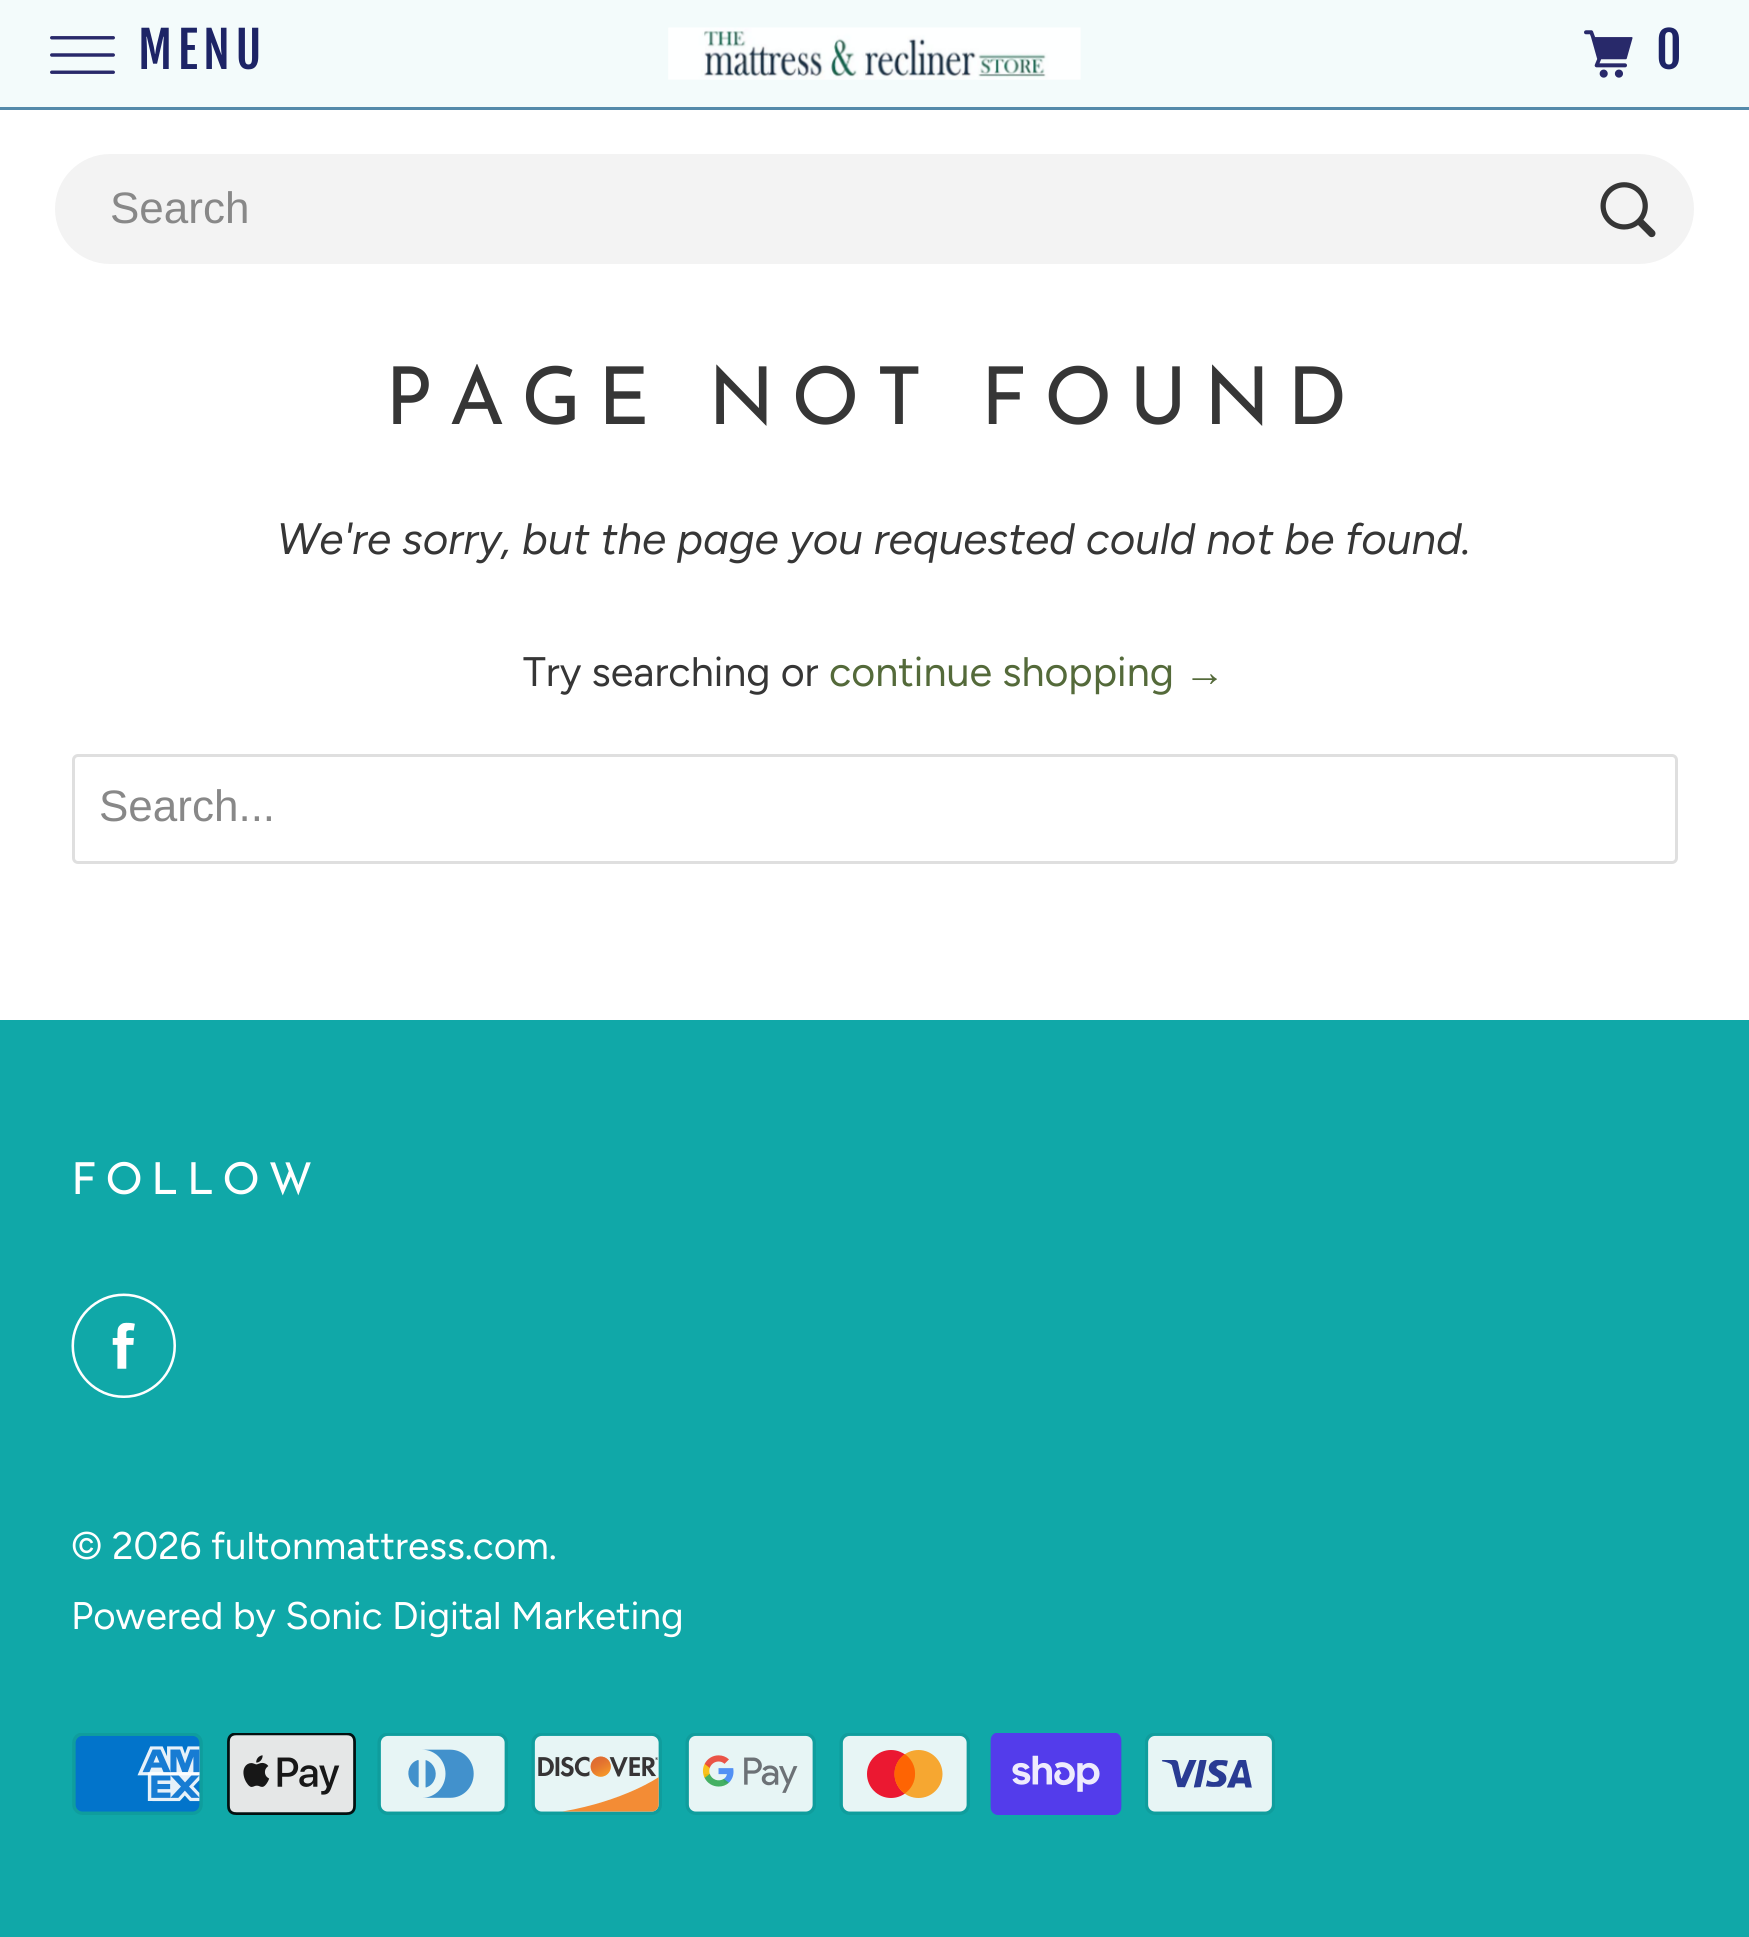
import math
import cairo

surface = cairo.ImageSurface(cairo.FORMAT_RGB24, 1749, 1937)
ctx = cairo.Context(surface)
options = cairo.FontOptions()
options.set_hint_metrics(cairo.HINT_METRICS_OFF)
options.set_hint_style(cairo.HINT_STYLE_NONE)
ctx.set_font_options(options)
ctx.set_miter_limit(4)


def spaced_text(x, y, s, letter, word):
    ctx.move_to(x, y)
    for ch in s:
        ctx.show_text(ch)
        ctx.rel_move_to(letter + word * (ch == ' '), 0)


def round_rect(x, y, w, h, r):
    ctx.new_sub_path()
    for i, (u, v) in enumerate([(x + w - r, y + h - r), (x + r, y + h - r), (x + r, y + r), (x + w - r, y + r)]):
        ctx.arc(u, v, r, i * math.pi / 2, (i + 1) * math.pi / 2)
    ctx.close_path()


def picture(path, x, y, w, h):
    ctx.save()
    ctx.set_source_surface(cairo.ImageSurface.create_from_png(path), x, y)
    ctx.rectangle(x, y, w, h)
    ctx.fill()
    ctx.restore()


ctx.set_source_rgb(1, 1, 1)
ctx.paint()
ctx.set_source_rgb(0.953, 0.984, 0.984)
ctx.rectangle(0, 0, 1749, 107)
ctx.fill()
ctx.set_source_rgb(0.329, 0.541, 0.667)
ctx.rectangle(0, 107, 1749, 3)
ctx.fill()
picture("img1.png", 50, 36, 65, 38)
ctx.select_font_face("Fjalla One")
ctx.set_font_size(49.5)
ctx.set_source_rgb(0.114, 0.141, 0.4)
spaced_text(138, 69, "MENU", 5.5, 0)
picture("img2.png", 668, 27, 413, 53)
picture("img3.png", 1584, 30, 49, 48)
spaced_text(1656, 69, "0", 5.5, 0)
ctx.set_source_rgb(0.953, 0.953, 0.953)
round_rect(55, 154, 1639, 110, 55)
ctx.fill()
ctx.select_font_face("Liberation Sans")
ctx.set_font_size(44)
ctx.set_source_rgb(0.533, 0.533, 0.533)
ctx.move_to(110, 223)
ctx.show_text("Search")
picture("img4.png", 1600, 182, 56, 56)
ctx.select_font_face("Josefin Sans")
ctx.set_font_size(79.75)
ctx.set_source_rgb(0.212, 0.212, 0.212)
spaced_text(385, 424, "PAGE NOT FOUND", 16.5, 0)
ctx.select_font_face("Figtree", cairo.FONT_SLANT_ITALIC)
ctx.set_font_size(44)
ctx.move_to(277, 554)
ctx.show_text("We're sorry, but the page you requested could not be found.")
ctx.select_font_face("Figtree")
ctx.set_font_size(41.25)
ctx.move_to(523, 686)
ctx.show_text("Try searching or")
ctx.set_source_rgb(0.329, 0.416, 0.227)
ctx.move_to(829, 686)
ctx.show_text("continue shopping")
ctx.select_font_face("Liberation Sans")
ctx.move_to(1184, 686)
ctx.show_text("→")
round_rect(73.5, 755.5, 1603, 107, 4.5)
ctx.set_source_rgb(0.875, 0.875, 0.875)
ctx.set_line_width(3)
ctx.stroke()
ctx.set_font_size(44)
ctx.set_source_rgb(0.533, 0.533, 0.533)
ctx.move_to(99, 821)
ctx.show_text("Search...")
ctx.set_source_rgb(0.063, 0.659, 0.659)
ctx.rectangle(0, 1020, 1749, 917)
ctx.fill()
ctx.select_font_face("Josefin Sans")
ctx.set_source_rgb(1, 1, 1)
spaced_text(71, 1194, "FOLLOW", 8.25, 0)
picture("img5.png", 71, 1293, 105, 105)
ctx.select_font_face("Figtree")
ctx.set_font_size(38.5)
ctx.move_to(71, 1559)
ctx.show_text("© 2026 fultonmattress.com.")
ctx.move_to(71, 1629)
ctx.show_text("Powered by Sonic Digital Marketing")
picture("img6.png", 72, 1733, 131, 82)
picture("img7.png", 227, 1733, 129, 82)
picture("img8.png", 377, 1733, 131, 82)
picture("img9.png", 531, 1733, 131, 82)
picture("img10.png", 685, 1733, 131, 82)
picture("img11.png", 839, 1733, 131, 82)
picture("img12.png", 990, 1733, 132, 82)
picture("img13.png", 1145, 1733, 130, 82)
surface.write_to_png("page.png")
